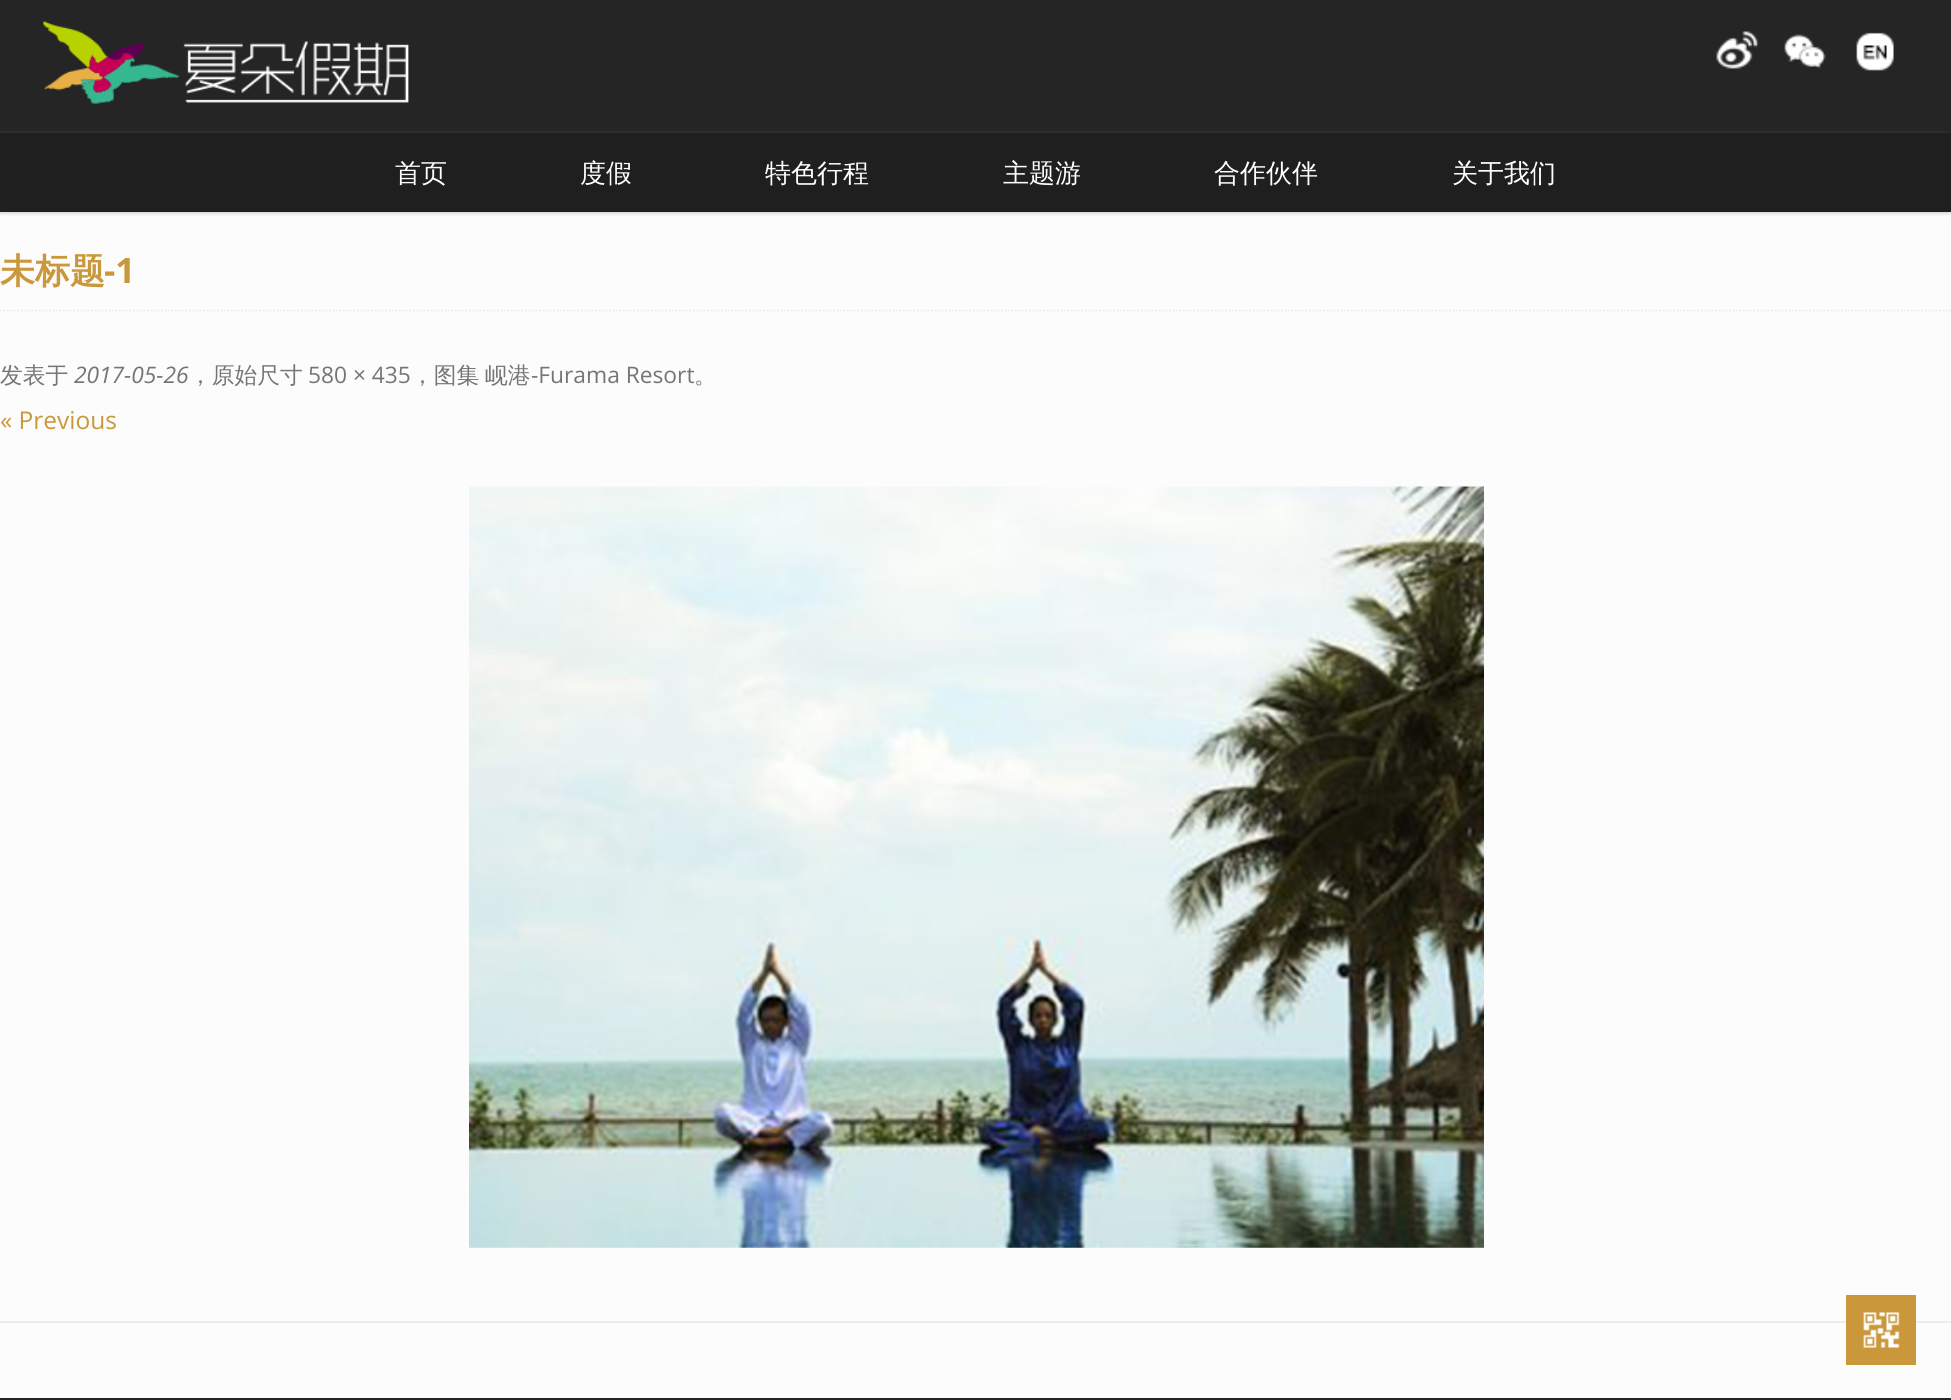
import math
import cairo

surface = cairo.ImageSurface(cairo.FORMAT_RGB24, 1951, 1400)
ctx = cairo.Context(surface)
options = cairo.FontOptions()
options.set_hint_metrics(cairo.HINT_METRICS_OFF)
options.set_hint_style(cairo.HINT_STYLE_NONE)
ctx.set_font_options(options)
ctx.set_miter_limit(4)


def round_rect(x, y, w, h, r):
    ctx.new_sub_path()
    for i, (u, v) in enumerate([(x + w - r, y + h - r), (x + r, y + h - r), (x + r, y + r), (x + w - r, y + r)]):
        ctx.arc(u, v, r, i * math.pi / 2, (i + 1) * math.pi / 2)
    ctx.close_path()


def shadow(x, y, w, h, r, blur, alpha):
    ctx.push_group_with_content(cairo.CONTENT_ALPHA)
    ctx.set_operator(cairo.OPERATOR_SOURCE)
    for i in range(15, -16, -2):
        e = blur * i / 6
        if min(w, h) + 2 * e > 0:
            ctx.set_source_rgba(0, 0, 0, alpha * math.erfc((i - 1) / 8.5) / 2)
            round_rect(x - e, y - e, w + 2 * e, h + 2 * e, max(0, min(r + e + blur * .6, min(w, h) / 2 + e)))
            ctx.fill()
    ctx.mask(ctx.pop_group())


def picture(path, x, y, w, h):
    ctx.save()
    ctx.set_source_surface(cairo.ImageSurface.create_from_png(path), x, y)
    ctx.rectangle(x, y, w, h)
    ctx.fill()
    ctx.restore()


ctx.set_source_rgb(0.988, 0.988, 0.988)
ctx.paint()
ctx.set_source_rgb(0, 0, 0)
shadow(0, 2, 1951, 210, 0, 2.5, 0.3)
ctx.set_source_rgb(0.145, 0.145, 0.145)
ctx.rectangle(0, 0, 1951, 131)
ctx.fill()
picture("img1.png", 43, 21, 366, 83)
picture("img2.png", 1716, 31, 42, 38)
picture("img3.png", 1783, 34, 43, 35)
picture("img4.png", 1856, 32, 38, 39)
ctx.set_source_rgb(0.122, 0.122, 0.122)
ctx.rectangle(0, 133, 1951, 79)
ctx.fill()
ctx.set_source_rgb(0.173, 0.173, 0.173)
ctx.rectangle(0, 131, 1951, 2)
ctx.fill()
ctx.select_font_face("WenQuanYi Zen Hei Medium")
ctx.set_font_size(26)
ctx.set_source_rgb(1, 1, 1)
ctx.move_to(395, 182)
ctx.show_text("首页")
ctx.move_to(580, 182)
ctx.show_text("度假")
ctx.move_to(765, 182)
ctx.show_text("特色行程")
ctx.move_to(1003, 182)
ctx.show_text("主题游")
ctx.move_to(1214, 182)
ctx.show_text("合作伙伴")
ctx.move_to(1452, 182)
ctx.show_text("关于我们")
ctx.set_source_rgb(0.929, 0.929, 0.929)
ctx.rectangle(0, 1321, 1951, 2)
ctx.fill()
ctx.new_path()
ctx.move_to(0, 310.5)
ctx.line_to(1951, 310.5)
ctx.set_line_width(1.8)
ctx.set_dash([1.75, 1.75])
ctx.stroke()
ctx.select_font_face("WenQuanYi Zen Hei", cairo.FONT_SLANT_NORMAL, cairo.FONT_WEIGHT_BOLD)
ctx.set_font_size(35)
ctx.set_source_rgb(0.792, 0.596, 0.231)
ctx.move_to(0, 283)
ctx.show_text("未标题")
ctx.select_font_face("Open Sans", cairo.FONT_SLANT_NORMAL, cairo.FONT_WEIGHT_BOLD)
ctx.move_to(104, 283)
ctx.show_text("-1")
ctx.select_font_face("WenQuanYi Zen Hei Medium")
ctx.set_font_size(22.75)
ctx.set_source_rgb(0.459, 0.459, 0.459)
ctx.move_to(0, 383)
ctx.show_text("发表于")
ctx.select_font_face("Open Sans", cairo.FONT_SLANT_ITALIC)
ctx.move_to(74, 383)
ctx.show_text("2017-05-26")
ctx.select_font_face("WenQuanYi Zen Hei Medium")
ctx.move_to(189, 383)
ctx.show_text("，原始尺寸")
ctx.select_font_face("Open Sans")
ctx.move_to(308, 383)
ctx.show_text("580 × 435")
ctx.select_font_face("WenQuanYi Zen Hei Medium")
ctx.move_to(411, 383)
ctx.show_text("，图集")
ctx.move_to(485, 383)
ctx.show_text("岘港")
ctx.select_font_face("Open Sans")
ctx.move_to(531, 383)
ctx.show_text("-Furama Resort")
ctx.select_font_face("WenQuanYi Zen Hei Medium")
ctx.move_to(694, 383)
ctx.show_text("。")
ctx.select_font_face("Open Sans")
ctx.set_font_size(24.5)
ctx.set_source_rgb(0.792, 0.596, 0.231)
ctx.move_to(0, 429)
ctx.show_text("« Previous")
picture("img5.png", 469, 486, 1015, 762)
ctx.rectangle(1846, 1295, 70, 70)
ctx.fill()
picture("img6.png", 1863, 1312, 37, 36)
ctx.set_source_rgb(0.145, 0.145, 0.145)
ctx.rectangle(0, 1398, 1951, 2)
ctx.fill()
surface.write_to_png("page.png")
